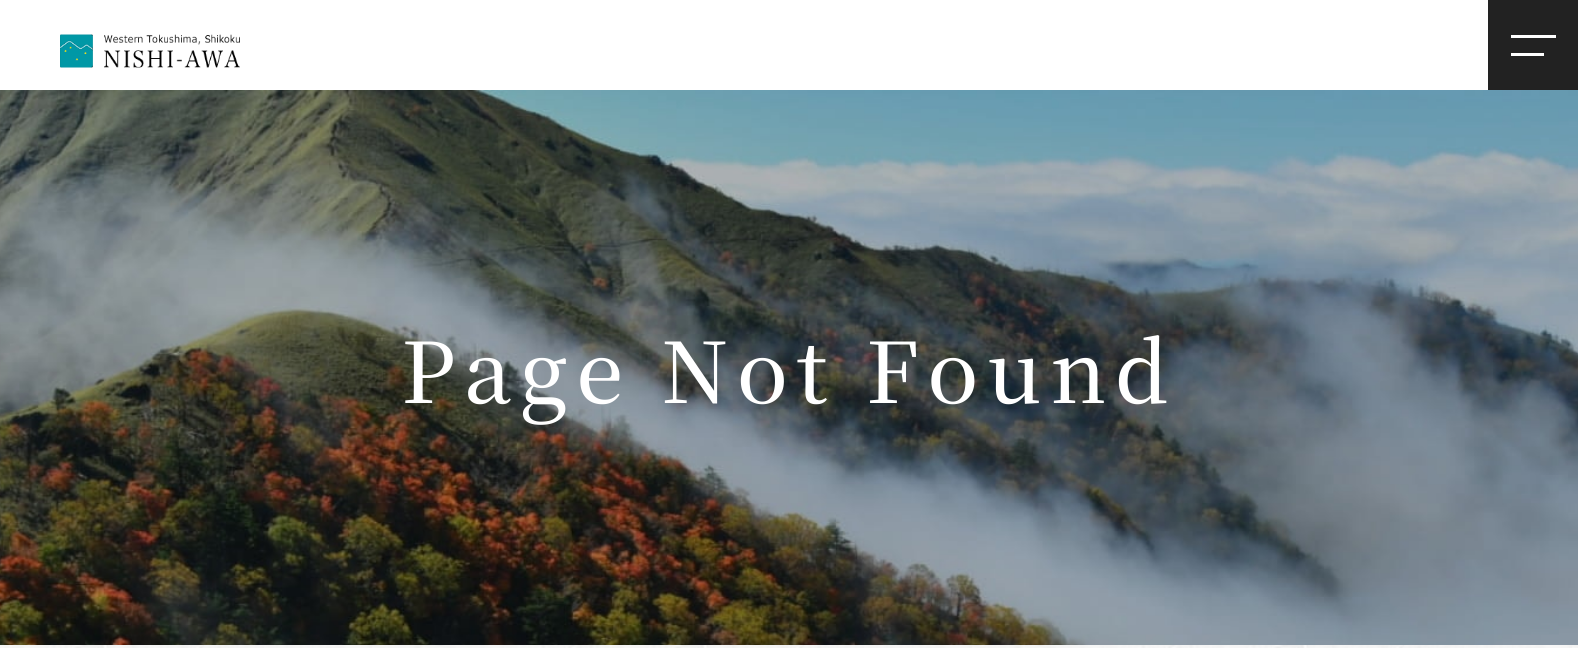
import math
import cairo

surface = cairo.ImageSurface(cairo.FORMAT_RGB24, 1578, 648)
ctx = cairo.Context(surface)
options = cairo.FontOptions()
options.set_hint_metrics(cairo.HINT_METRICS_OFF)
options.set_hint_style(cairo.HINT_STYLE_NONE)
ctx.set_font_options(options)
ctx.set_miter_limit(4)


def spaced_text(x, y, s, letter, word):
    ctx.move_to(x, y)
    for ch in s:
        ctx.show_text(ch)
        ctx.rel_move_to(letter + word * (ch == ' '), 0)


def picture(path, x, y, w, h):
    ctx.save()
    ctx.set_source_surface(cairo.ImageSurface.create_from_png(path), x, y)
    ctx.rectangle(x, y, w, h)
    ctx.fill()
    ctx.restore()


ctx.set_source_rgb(1, 1, 1)
ctx.paint()
picture("img1.png", 0, 645, 1578, 3)
picture("img2.png", 60, 34, 180, 34)
ctx.set_source_rgb(0.133, 0.133, 0.133)
ctx.rectangle(1488, 0, 90, 90)
ctx.fill()
ctx.set_source_rgb(1, 1, 1)
ctx.rectangle(1511, 35, 45, 3)
ctx.fill()
ctx.rectangle(1511, 53, 33, 3)
ctx.fill()
picture("img3.png", 0, 90, 1578, 555)
ctx.select_font_face("Noto Serif JP Medium")
ctx.set_font_size(84)
spaced_text(401, 403, "Page Not Found", 8.4, 0)
surface.write_to_png("page.png")
